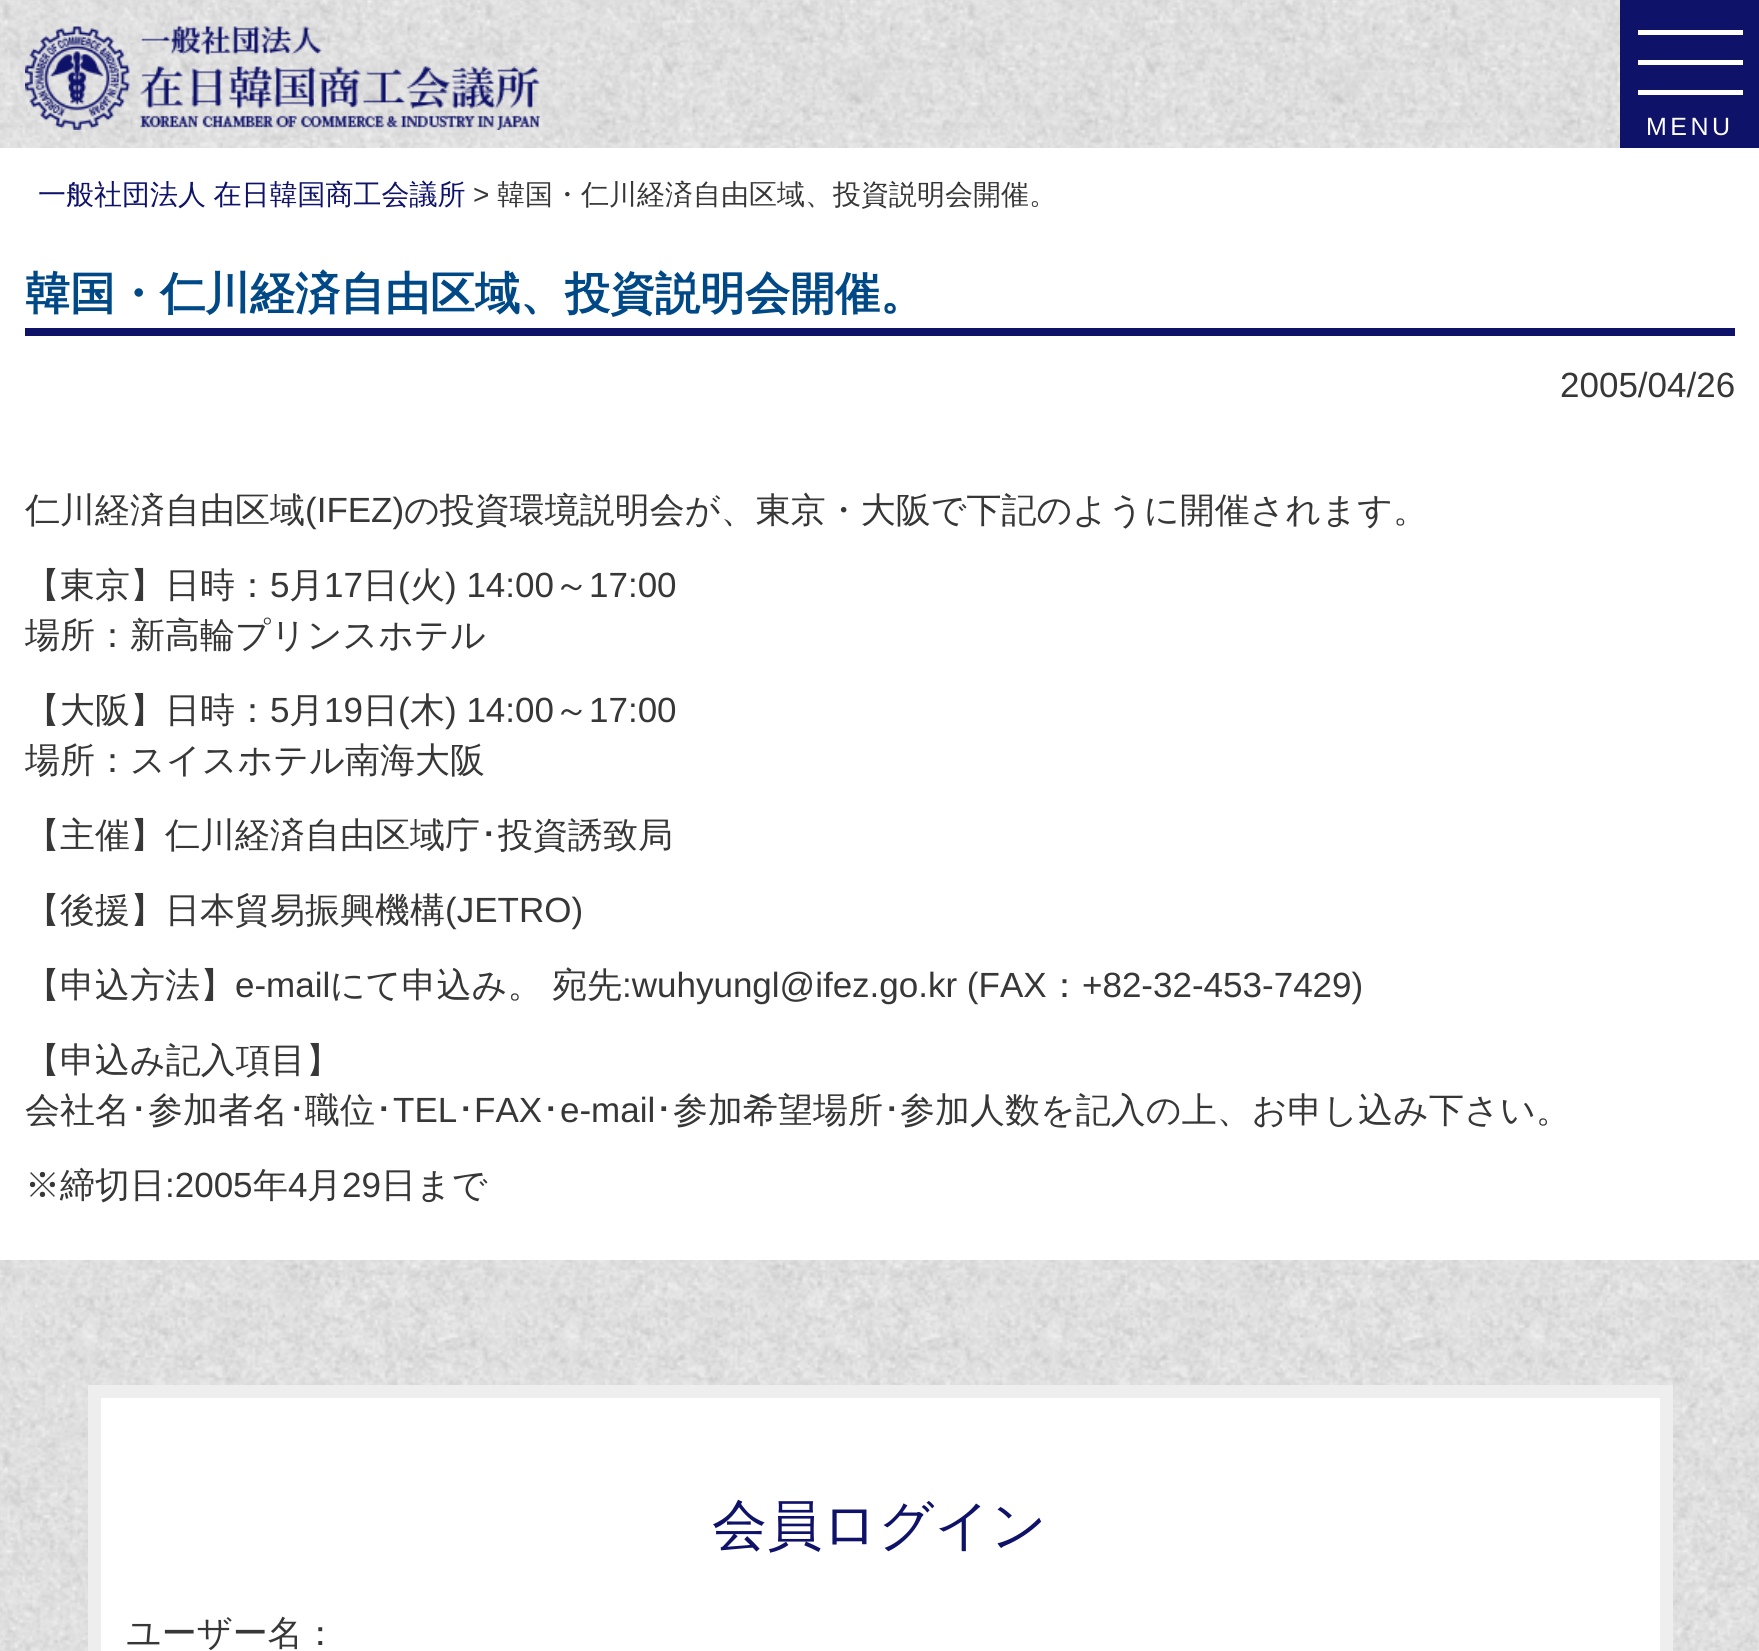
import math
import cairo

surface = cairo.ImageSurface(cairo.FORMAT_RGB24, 1759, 1651)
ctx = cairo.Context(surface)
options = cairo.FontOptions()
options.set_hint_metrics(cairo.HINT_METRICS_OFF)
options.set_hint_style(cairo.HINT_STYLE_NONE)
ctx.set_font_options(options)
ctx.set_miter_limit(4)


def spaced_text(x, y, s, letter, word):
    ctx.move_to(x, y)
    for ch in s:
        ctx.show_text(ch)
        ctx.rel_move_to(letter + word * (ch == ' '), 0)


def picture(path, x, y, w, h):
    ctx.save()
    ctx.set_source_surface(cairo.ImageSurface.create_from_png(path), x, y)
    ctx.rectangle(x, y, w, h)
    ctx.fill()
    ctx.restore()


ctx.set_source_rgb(1, 1, 1)
ctx.paint()
picture("img1.png", 0, 0, 1759, 1651)
picture("img2.png", 25, 25, 515, 105)
ctx.set_source_rgb(0.059, 0.071, 0.412)
ctx.rectangle(1620, 0, 139, 148)
ctx.fill()
ctx.set_source_rgb(1, 1, 1)
ctx.rectangle(1638, 30, 105, 5)
ctx.fill()
ctx.rectangle(1638, 60, 105, 5)
ctx.fill()
ctx.rectangle(1638, 90, 105, 5)
ctx.fill()
ctx.select_font_face("Liberation Sans")
ctx.set_font_size(25)
spaced_text(1646, 135, "MENU", 3.5, 0)
ctx.rectangle(0, 148, 1759, 1112)
ctx.fill()
ctx.select_font_face("WenQuanYi Zen Hei Medium")
ctx.set_font_size(28)
ctx.set_source_rgb(0.059, 0.071, 0.412)
spaced_text(38, 204, "一般社団法人 在日韓国商工会議所", 0, -1)
ctx.select_font_face("Liberation Sans")
ctx.set_source_rgb(0.216, 0.216, 0.216)
ctx.move_to(473, 204)
ctx.show_text(">")
ctx.select_font_face("WenQuanYi Zen Hei Medium")
ctx.move_to(497, 204)
ctx.show_text("韓国・仁川経済自由区域、投資説明会開催。")
ctx.set_source_rgb(0.059, 0.071, 0.412)
ctx.rectangle(25, 328, 1710, 8)
ctx.fill()
ctx.select_font_face("WenQuanYi Zen Hei", cairo.FONT_SLANT_NORMAL, cairo.FONT_WEIGHT_BOLD)
ctx.set_font_size(45)
ctx.set_source_rgb(0, 0.286, 0.525)
ctx.move_to(25, 309)
ctx.show_text("韓国・仁川経済自由区域、投資説明会開催。")
ctx.select_font_face("Liberation Sans")
ctx.set_font_size(35)
ctx.set_source_rgb(0.216, 0.216, 0.216)
ctx.move_to(1560, 397)
ctx.show_text("2005/04/26")
ctx.select_font_face("WenQuanYi Zen Hei Medium")
ctx.move_to(25, 522)
ctx.show_text("仁川経済自由区域")
ctx.select_font_face("Liberation Sans")
ctx.move_to(305, 522)
ctx.show_text("(IFEZ)")
ctx.select_font_face("WenQuanYi Zen Hei Medium")
ctx.move_to(404, 522)
ctx.show_text("の投資環境説明会が、東京・大阪で下記のように開催されます。")
ctx.move_to(25, 597)
ctx.show_text("【東京】日時：")
ctx.select_font_face("Liberation Sans")
ctx.move_to(270, 597)
ctx.show_text("5")
ctx.select_font_face("WenQuanYi Zen Hei Medium")
ctx.move_to(289, 597)
ctx.show_text("月")
ctx.select_font_face("Liberation Sans")
ctx.move_to(324, 597)
ctx.show_text("17")
ctx.select_font_face("WenQuanYi Zen Hei Medium")
ctx.move_to(363, 597)
ctx.show_text("日")
ctx.select_font_face("Liberation Sans")
ctx.move_to(398, 597)
ctx.show_text("(")
ctx.select_font_face("WenQuanYi Zen Hei Medium")
ctx.move_to(410, 597)
ctx.show_text("火")
ctx.select_font_face("Liberation Sans")
ctx.move_to(445, 597)
ctx.show_text(") 14:00")
ctx.select_font_face("WenQuanYi Zen Hei Medium")
ctx.move_to(554, 597)
ctx.show_text("～")
ctx.select_font_face("Liberation Sans")
ctx.move_to(589, 597)
ctx.show_text("17:00")
ctx.select_font_face("WenQuanYi Zen Hei Medium")
ctx.move_to(25, 647)
ctx.show_text("場所：新高輪プリンスホテル")
ctx.move_to(25, 722)
ctx.show_text("【大阪】日時：")
ctx.select_font_face("Liberation Sans")
ctx.move_to(270, 722)
ctx.show_text("5")
ctx.select_font_face("WenQuanYi Zen Hei Medium")
ctx.move_to(289, 722)
ctx.show_text("月")
ctx.select_font_face("Liberation Sans")
ctx.move_to(324, 722)
ctx.show_text("19")
ctx.select_font_face("WenQuanYi Zen Hei Medium")
ctx.move_to(363, 722)
ctx.show_text("日")
ctx.select_font_face("Liberation Sans")
ctx.move_to(398, 722)
ctx.show_text("(")
ctx.select_font_face("WenQuanYi Zen Hei Medium")
ctx.move_to(410, 722)
ctx.show_text("木")
ctx.select_font_face("Liberation Sans")
ctx.move_to(445, 722)
ctx.show_text(") 14:00")
ctx.select_font_face("WenQuanYi Zen Hei Medium")
ctx.move_to(554, 722)
ctx.show_text("～")
ctx.select_font_face("Liberation Sans")
ctx.move_to(589, 722)
ctx.show_text("17:00")
ctx.select_font_face("WenQuanYi Zen Hei Medium")
ctx.move_to(25, 772)
ctx.show_text("場所：スイスホテル南海大阪")
ctx.move_to(25, 847)
ctx.show_text("【主催】仁川経済自由区域庁")
ctx.select_font_face("IPAPGothic")
ctx.move_to(480, 847)
ctx.show_text("･")
ctx.select_font_face("WenQuanYi Zen Hei Medium")
ctx.move_to(498, 847)
ctx.show_text("投資誘致局")
ctx.move_to(25, 922)
ctx.show_text("【後援】日本貿易振興機構")
ctx.select_font_face("Liberation Sans")
ctx.move_to(445, 922)
ctx.show_text("(JETRO)")
ctx.select_font_face("WenQuanYi Zen Hei Medium")
ctx.move_to(25, 997)
ctx.show_text("【申込方法】")
ctx.select_font_face("Liberation Sans")
ctx.move_to(235, 997)
ctx.show_text("e-mail")
ctx.select_font_face("WenQuanYi Zen Hei Medium")
ctx.move_to(330, 997)
ctx.show_text("にて申込み。")
ctx.move_to(552, 997)
ctx.show_text("宛先")
ctx.select_font_face("Liberation Sans")
ctx.move_to(622, 997)
ctx.show_text(":wuhyungl@ifez.go.kr (FAX")
ctx.select_font_face("WenQuanYi Zen Hei Medium")
ctx.move_to(1047, 997)
ctx.show_text("：")
ctx.select_font_face("Liberation Sans")
ctx.move_to(1082, 997)
ctx.show_text("+82-32-453-7429)")
ctx.select_font_face("WenQuanYi Zen Hei Medium")
ctx.move_to(25, 1072)
ctx.show_text("【申込み記入項目】")
ctx.move_to(25, 1122)
ctx.show_text("会社名")
ctx.select_font_face("IPAPGothic")
ctx.move_to(130, 1122)
ctx.show_text("･")
ctx.select_font_face("WenQuanYi Zen Hei Medium")
ctx.move_to(148, 1122)
ctx.show_text("参加者名")
ctx.select_font_face("IPAPGothic")
ctx.move_to(288, 1122)
ctx.show_text("･")
ctx.select_font_face("WenQuanYi Zen Hei Medium")
ctx.move_to(305, 1122)
ctx.show_text("職位")
ctx.select_font_face("IPAPGothic")
ctx.move_to(375, 1122)
ctx.show_text("･")
ctx.select_font_face("Liberation Sans")
ctx.move_to(393, 1122)
ctx.show_text("TEL")
ctx.select_font_face("IPAPGothic")
ctx.move_to(457, 1122)
ctx.show_text("･")
ctx.select_font_face("Liberation Sans")
ctx.move_to(474, 1122)
ctx.show_text("FAX")
ctx.select_font_face("IPAPGothic")
ctx.move_to(542, 1122)
ctx.show_text("･")
ctx.select_font_face("Liberation Sans")
ctx.move_to(560, 1122)
ctx.show_text("e-mail")
ctx.select_font_face("IPAPGothic")
ctx.move_to(655, 1122)
ctx.show_text("･")
ctx.select_font_face("WenQuanYi Zen Hei Medium")
ctx.move_to(673, 1122)
ctx.show_text("参加希望場所")
ctx.select_font_face("IPAPGothic")
ctx.move_to(883, 1122)
ctx.show_text("･")
ctx.select_font_face("WenQuanYi Zen Hei Medium")
ctx.move_to(900, 1122)
ctx.show_text("参加人数を記入の上、お申し込み下さい。")
ctx.move_to(25, 1197)
ctx.show_text("※締切日")
ctx.select_font_face("Liberation Sans")
ctx.move_to(165, 1197)
ctx.show_text(":2005")
ctx.select_font_face("WenQuanYi Zen Hei Medium")
ctx.move_to(253, 1197)
ctx.show_text("年")
ctx.select_font_face("Liberation Sans")
ctx.move_to(288, 1197)
ctx.show_text("4")
ctx.select_font_face("WenQuanYi Zen Hei Medium")
ctx.move_to(307, 1197)
ctx.show_text("月")
ctx.select_font_face("Liberation Sans")
ctx.move_to(342, 1197)
ctx.show_text("29")
ctx.select_font_face("WenQuanYi Zen Hei Medium")
ctx.move_to(381, 1197)
ctx.show_text("日まで")
ctx.set_source_rgb(1, 1, 1)
ctx.rectangle(94.5, 1391.5, 1572, 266)
ctx.fill_preserve()
ctx.set_source_rgb(0.933, 0.933, 0.933)
ctx.set_line_width(13)
ctx.stroke()
ctx.set_font_size(55)
ctx.set_source_rgb(0.059, 0.071, 0.412)
ctx.move_to(712, 1544)
ctx.show_text("会員ログイン")
ctx.set_font_size(35)
ctx.set_source_rgb(0.216, 0.216, 0.216)
ctx.move_to(126, 1645)
ctx.show_text("ユーザー名：")
surface.write_to_png("page.png")
